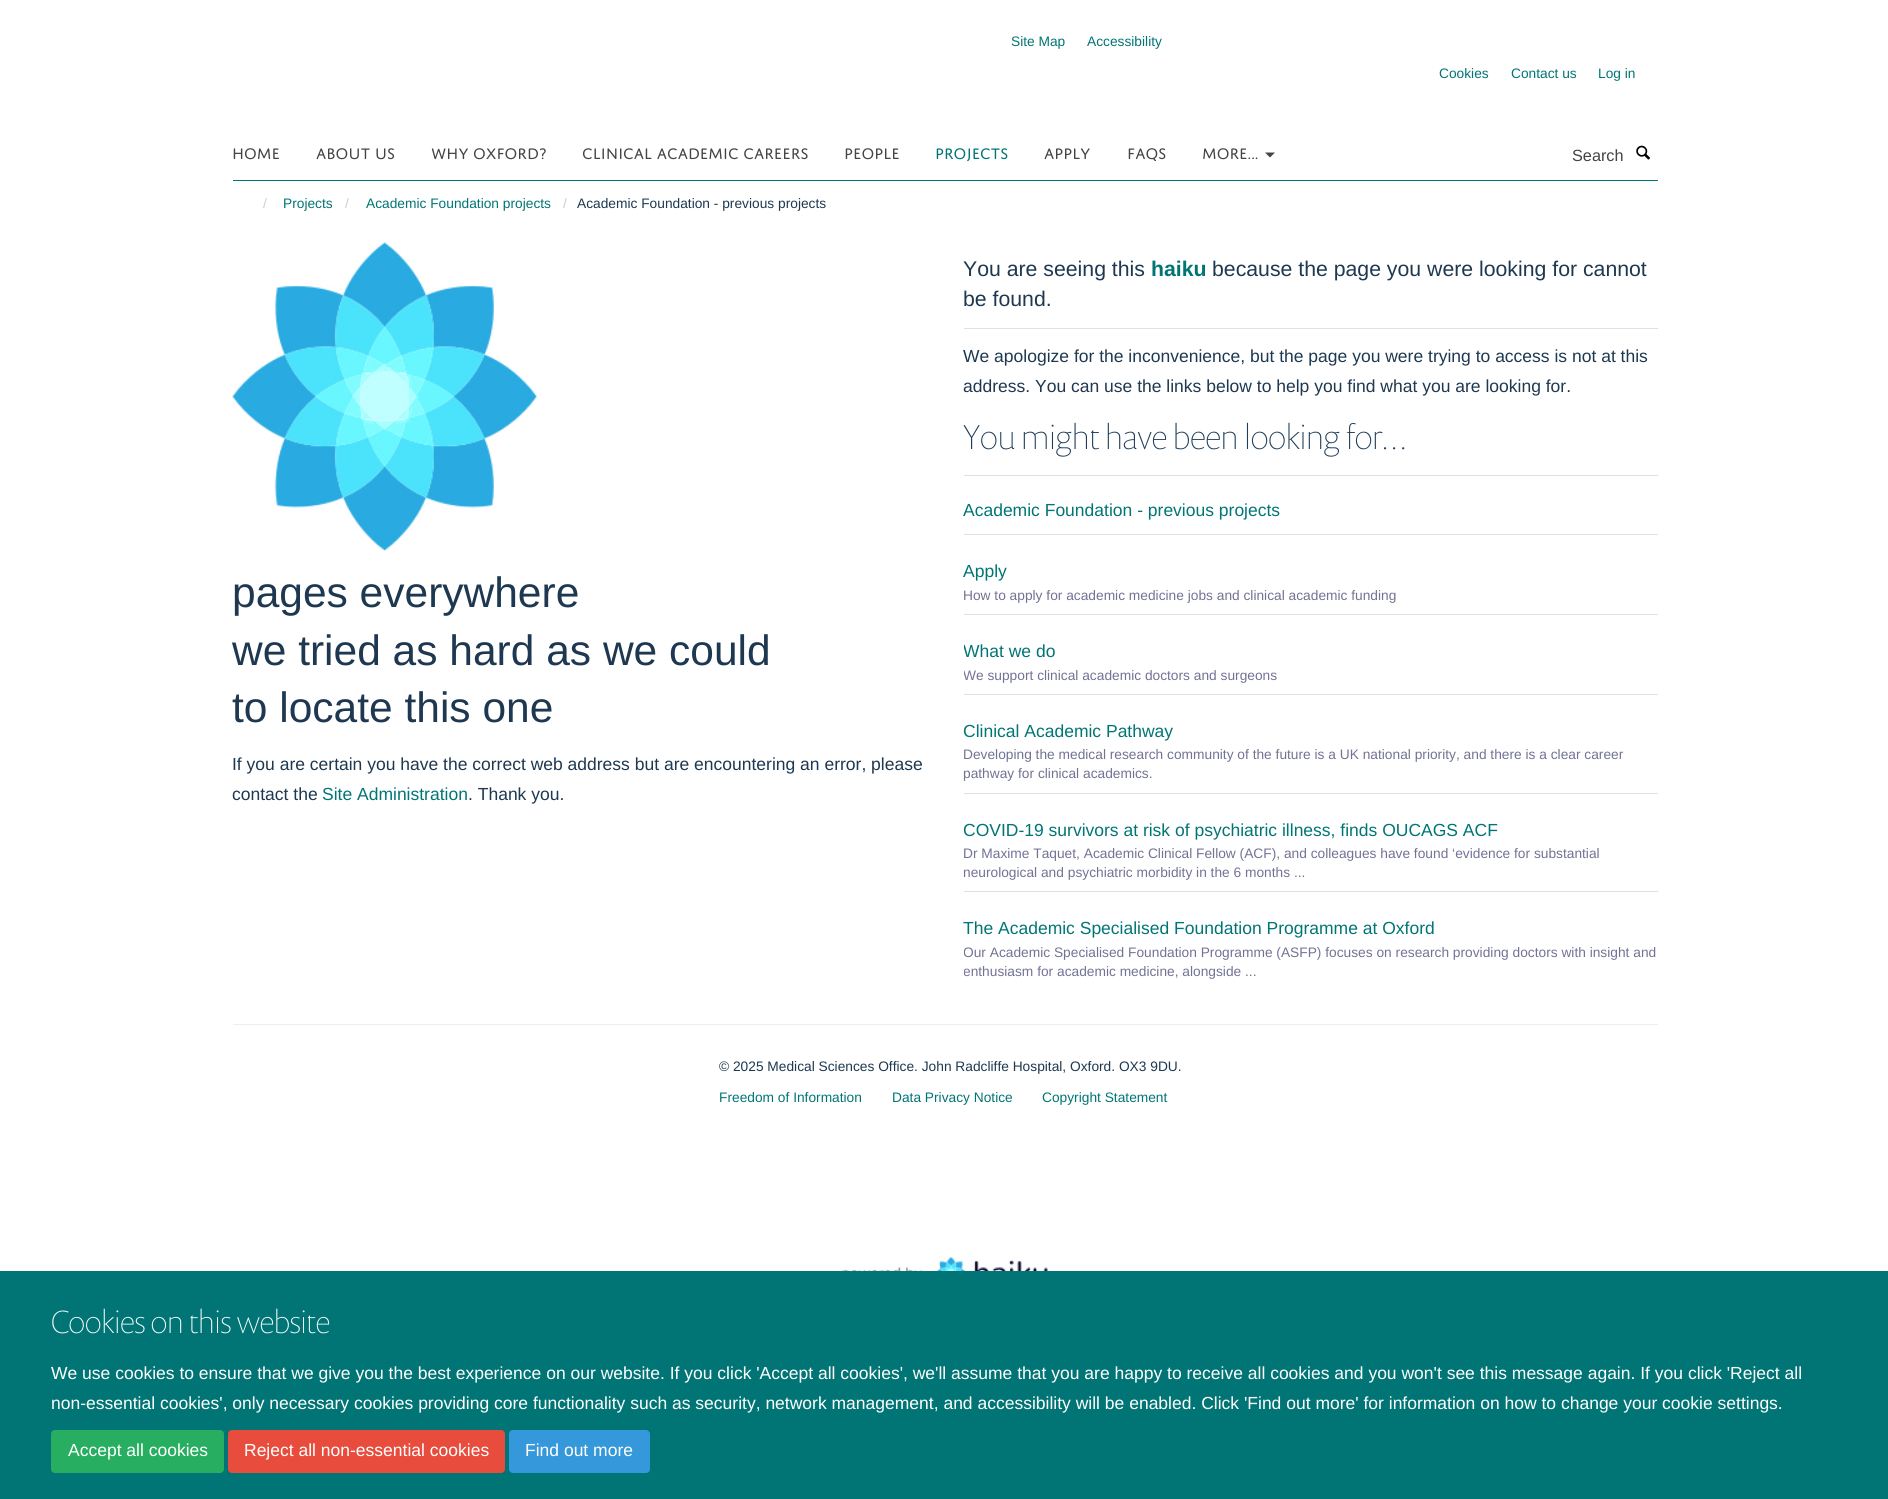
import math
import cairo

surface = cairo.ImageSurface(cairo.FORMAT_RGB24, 1888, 1499)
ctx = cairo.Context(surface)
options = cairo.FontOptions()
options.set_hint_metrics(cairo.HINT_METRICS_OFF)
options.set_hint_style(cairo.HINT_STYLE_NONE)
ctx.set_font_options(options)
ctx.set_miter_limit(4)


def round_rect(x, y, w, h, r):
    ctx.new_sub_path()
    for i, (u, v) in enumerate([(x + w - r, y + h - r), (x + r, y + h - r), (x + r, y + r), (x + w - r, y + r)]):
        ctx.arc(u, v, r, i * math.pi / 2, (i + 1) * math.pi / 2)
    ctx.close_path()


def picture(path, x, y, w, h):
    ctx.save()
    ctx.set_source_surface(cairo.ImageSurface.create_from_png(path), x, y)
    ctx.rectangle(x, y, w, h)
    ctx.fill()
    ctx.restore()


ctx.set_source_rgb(1, 1, 1)
ctx.paint()
ctx.select_font_face("Liberation Sans")
ctx.set_font_size(13.75)
ctx.set_source_rgb(0.004, 0.459, 0.459)
ctx.move_to(1011, 46)
ctx.show_text("Site Map")
ctx.move_to(1087, 46)
ctx.show_text("Accessibility")
ctx.move_to(1439, 78)
ctx.show_text("Cookies")
ctx.move_to(1511, 78)
ctx.show_text("Contact us")
ctx.move_to(1598, 78)
ctx.show_text("Log in")
ctx.rectangle(233, 180, 1425, 1)
ctx.fill()
ctx.select_font_face("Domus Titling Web")
ctx.set_font_size(16.25)
ctx.set_source_rgb(0.267, 0.267, 0.267)
ctx.move_to(232, 159)
ctx.show_text("HOME")
ctx.move_to(316, 159)
ctx.show_text("ABOUT US")
ctx.move_to(431, 159)
ctx.show_text("WHY OXFORD?")
ctx.move_to(582, 159)
ctx.show_text("CLINICAL ACADEMIC CAREERS")
ctx.move_to(844, 159)
ctx.show_text("PEOPLE")
ctx.set_source_rgb(0.004, 0.459, 0.459)
ctx.move_to(935, 159)
ctx.show_text("PROJECTS")
ctx.set_source_rgb(0.267, 0.267, 0.267)
ctx.move_to(1044, 159)
ctx.show_text("APPLY")
ctx.move_to(1127, 159)
ctx.show_text("FAQS")
ctx.move_to(1202, 159)
ctx.show_text("MORE...")
ctx.new_path()
ctx.move_to(1265, 152.5)
ctx.line_to(1275, 152.5)
ctx.line_to(1270, 157.5)
ctx.close_path()
ctx.fill()
ctx.select_font_face("Liberation Sans")
ctx.move_to(1572, 161)
ctx.show_text("Search")
picture("img1.png", 1636, 145, 14, 15)
ctx.set_font_size(13.75)
ctx.set_source_rgb(0.8, 0.8, 0.8)
ctx.move_to(263, 208)
ctx.show_text("/")
ctx.set_source_rgb(0.004, 0.459, 0.459)
ctx.move_to(283, 208)
ctx.show_text("Projects")
ctx.set_source_rgb(0.8, 0.8, 0.8)
ctx.move_to(345, 208)
ctx.show_text("/")
ctx.set_source_rgb(0.004, 0.459, 0.459)
ctx.move_to(366, 208)
ctx.show_text("Academic Foundation projects")
ctx.set_source_rgb(0.8, 0.8, 0.8)
ctx.move_to(563, 208)
ctx.show_text("/")
ctx.set_source_rgb(0.114, 0.22, 0.314)
ctx.move_to(577, 208)
ctx.show_text("Academic Foundation - previous projects")
picture("img2.png", 232, 242, 306, 310)
ctx.set_font_size(42.5)
ctx.move_to(232, 607)
ctx.show_text("pages everywhere")
ctx.move_to(232, 665)
ctx.show_text("we tried as hard as we could")
ctx.move_to(232, 722)
ctx.show_text("to locate this one")
ctx.set_font_size(17.5)
ctx.move_to(232, 770)
ctx.show_text("If you are certain you have the correct web address but are encountering an error, please")
ctx.move_to(232, 800)
ctx.show_text("contact the")
ctx.set_source_rgb(0.004, 0.459, 0.459)
ctx.move_to(322, 800)
ctx.show_text("Site Administration")
ctx.set_source_rgb(0.114, 0.22, 0.314)
ctx.move_to(468, 800)
ctx.show_text(". Thank you.")
ctx.set_source_rgb(0.875, 0.882, 0.894)
ctx.rectangle(964, 328, 694, 1)
ctx.fill()
ctx.set_font_size(21.25)
ctx.set_source_rgb(0.114, 0.22, 0.314)
ctx.move_to(963, 276)
ctx.show_text("You are seeing this")
ctx.select_font_face("Liberation Sans", cairo.FONT_SLANT_NORMAL, cairo.FONT_WEIGHT_BOLD)
ctx.set_source_rgb(0.004, 0.459, 0.459)
ctx.move_to(1151, 276)
ctx.show_text("haiku")
ctx.select_font_face("Liberation Sans")
ctx.set_source_rgb(0.114, 0.22, 0.314)
ctx.move_to(1212, 276)
ctx.show_text("because the page you were looking for cannot")
ctx.move_to(963, 306)
ctx.show_text("be found.")
ctx.set_font_size(17.5)
ctx.move_to(963, 362)
ctx.show_text("We apologize for the inconvenience, but the page you were trying to access is not at this")
ctx.move_to(963, 392)
ctx.show_text("address. You can use the links below to help you find what you are looking for.")
ctx.set_source_rgb(0.875, 0.882, 0.894)
ctx.rectangle(964, 475, 694, 1)
ctx.fill()
ctx.select_font_face("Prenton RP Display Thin")
ctx.set_font_size(35)
ctx.set_source_rgb(0.125, 0.243, 0.345)
ctx.move_to(963, 449)
ctx.show_text("You might have been looking for…")
ctx.set_source_rgb(0.875, 0.882, 0.894)
ctx.rectangle(964, 534, 694, 1)
ctx.fill()
ctx.select_font_face("Liberation Sans")
ctx.set_font_size(17.5)
ctx.set_source_rgb(0.004, 0.459, 0.459)
ctx.move_to(963, 516)
ctx.show_text("Academic Foundation - previous projects")
ctx.set_source_rgb(0.875, 0.882, 0.894)
ctx.rectangle(964, 614, 694, 1)
ctx.fill()
ctx.set_source_rgb(0.004, 0.459, 0.459)
ctx.move_to(963, 577)
ctx.show_text("Apply")
ctx.set_font_size(13.75)
ctx.set_source_rgb(0.447, 0.447, 0.584)
ctx.move_to(963, 600)
ctx.show_text("How to apply for academic medicine jobs and clinical academic funding")
ctx.set_source_rgb(0.875, 0.882, 0.894)
ctx.rectangle(964, 694, 694, 1)
ctx.fill()
ctx.save()
ctx.rectangle(964, 628, 694, 66)
ctx.clip()
ctx.set_font_size(17.5)
ctx.set_source_rgb(0.004, 0.459, 0.459)
ctx.move_to(963, 657)
ctx.show_text("What we do")
ctx.set_font_size(13.75)
ctx.set_source_rgb(0.447, 0.447, 0.584)
ctx.move_to(963, 680)
ctx.show_text("We support clinical academic doctors and surgeons")
ctx.restore()
ctx.rectangle(964, 793, 694, 1)
ctx.fill()
ctx.set_font_size(17.5)
ctx.set_source_rgb(0.004, 0.459, 0.459)
ctx.move_to(963, 737)
ctx.show_text("Clinical Academic Pathway")
ctx.set_font_size(13.75)
ctx.set_source_rgb(0.447, 0.447, 0.584)
ctx.move_to(963, 759)
ctx.show_text("Developing the medical research community of the future is a UK national priority, and there is a clear career")
ctx.move_to(963, 778)
ctx.show_text("pathway for clinical academics.")
ctx.set_source_rgb(0.875, 0.882, 0.894)
ctx.rectangle(964, 891, 694, 1)
ctx.fill()
ctx.set_font_size(17.5)
ctx.set_source_rgb(0.004, 0.459, 0.459)
ctx.move_to(963, 836)
ctx.show_text("COVID-19 survivors at risk of psychiatric illness, finds OUCAGS ACF")
ctx.set_font_size(13.75)
ctx.set_source_rgb(0.447, 0.447, 0.584)
ctx.move_to(963, 858)
ctx.show_text("Dr Maxime Taquet, Academic Clinical Fellow (ACF), and colleagues have found ‘evidence for substantial")
ctx.move_to(963, 877)
ctx.show_text("neurological and psychiatric morbidity in the 6 months ...")
ctx.set_font_size(17.5)
ctx.set_source_rgb(0.004, 0.459, 0.459)
ctx.move_to(963, 934)
ctx.show_text("The Academic Specialised Foundation Programme at Oxford")
ctx.save()
ctx.rectangle(964, 905, 694, 75)
ctx.clip()
ctx.set_font_size(13.75)
ctx.set_source_rgb(0.447, 0.447, 0.584)
ctx.move_to(963, 957)
ctx.show_text("Our Academic Specialised Foundation Programme (ASFP) focuses on research providing doctors with insight and")
ctx.move_to(963, 976)
ctx.show_text("enthusiasm for academic medicine, alongside ...")
ctx.restore()
ctx.set_source_rgb(0.933, 0.933, 0.933)
ctx.rectangle(233, 1024, 1425, 1)
ctx.fill()
ctx.set_font_size(13.75)
ctx.set_source_rgb(0.114, 0.22, 0.314)
ctx.move_to(719, 1071)
ctx.show_text("© 2025 Medical Sciences Office. John Radcliffe Hospital, Oxford. OX3 9DU.")
ctx.set_source_rgb(0.004, 0.459, 0.459)
ctx.move_to(719, 1102)
ctx.show_text("Freedom of Information")
ctx.move_to(892, 1102)
ctx.show_text("Data Privacy Notice")
ctx.move_to(1042, 1102)
ctx.show_text("Copyright Statement")
picture("img3.png", 841, 1256, 207, 15)
ctx.rectangle(0, 1271, 1888, 228)
ctx.fill()
ctx.select_font_face("Prenton RP Display Thin")
ctx.set_font_size(32.5)
ctx.set_source_rgb(1, 1, 1)
ctx.move_to(51, 1333)
ctx.show_text("Cookies on this website")
ctx.select_font_face("Liberation Sans")
ctx.set_font_size(17.5)
ctx.move_to(51, 1379)
ctx.show_text("We use cookies to ensure that we give you the best experience on our website. If you click 'Accept all cookies', we'll assume that you are happy to receive all cookies and you won't see this message again. If you click 'Reject all")
ctx.move_to(51, 1409)
ctx.show_text("non-essential cookies', only necessary cookies providing core functionality such as security, network management, and accessibility will be enabled. Click 'Find out more' for information on how to change your cookie settings.")
ctx.set_source_rgb(0.153, 0.682, 0.376)
round_rect(51.5, 1430.5, 172, 42, 3.5)
ctx.fill_preserve()
ctx.set_line_width(1)
ctx.stroke()
ctx.set_source_rgb(1, 1, 1)
ctx.move_to(68, 1456)
ctx.show_text("Accept all cookies")
ctx.set_source_rgb(0.906, 0.298, 0.235)
round_rect(228.5, 1430.5, 276, 42, 3.5)
ctx.fill_preserve()
ctx.stroke()
ctx.set_source_rgb(1, 1, 1)
ctx.move_to(244, 1456)
ctx.show_text("Reject all non-essential cookies")
ctx.set_source_rgb(0.204, 0.596, 0.859)
round_rect(509.5, 1430.5, 140, 42, 3.5)
ctx.fill_preserve()
ctx.stroke()
ctx.set_source_rgb(1, 1, 1)
ctx.move_to(525, 1456)
ctx.show_text("Find out more")
surface.write_to_png("page.png")
